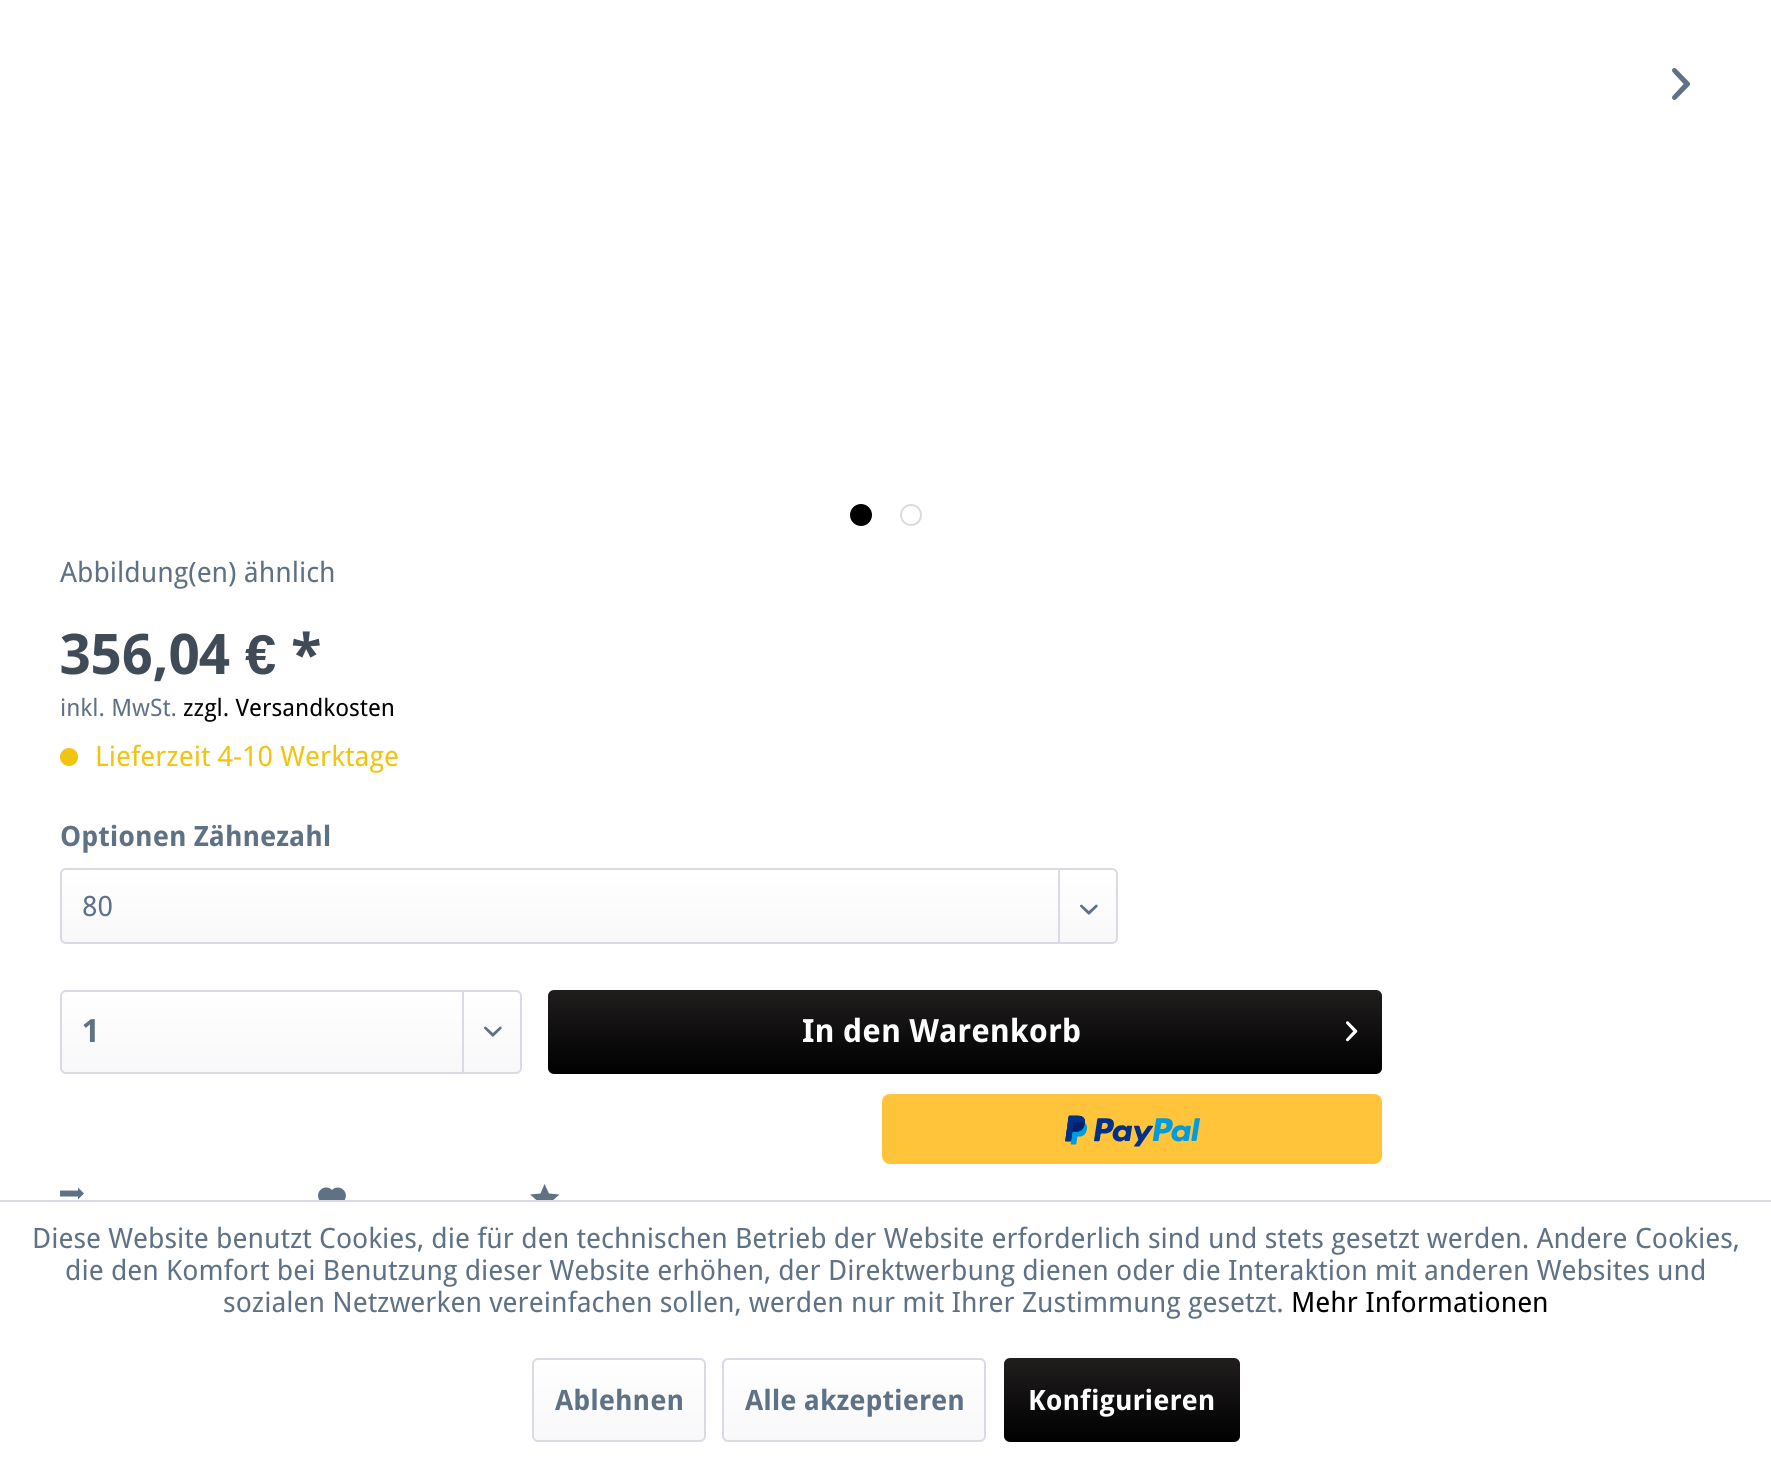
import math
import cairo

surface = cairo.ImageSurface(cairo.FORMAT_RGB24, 1771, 1461)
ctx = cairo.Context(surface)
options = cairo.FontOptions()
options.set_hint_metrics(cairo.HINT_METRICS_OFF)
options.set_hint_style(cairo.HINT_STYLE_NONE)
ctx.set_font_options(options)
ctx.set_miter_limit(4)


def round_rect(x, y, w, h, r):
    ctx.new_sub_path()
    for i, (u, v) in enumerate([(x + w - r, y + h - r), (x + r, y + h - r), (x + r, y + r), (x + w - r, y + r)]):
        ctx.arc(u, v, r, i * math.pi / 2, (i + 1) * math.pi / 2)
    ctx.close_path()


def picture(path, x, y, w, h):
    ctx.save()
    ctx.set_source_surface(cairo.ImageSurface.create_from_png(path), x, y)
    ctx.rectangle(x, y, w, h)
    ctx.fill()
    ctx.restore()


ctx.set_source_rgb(1, 1, 1)
ctx.paint()
picture("img1.png", 1672, 68, 18, 32)
ctx.set_source_rgb(0, 0, 0)
ctx.arc(861, 515, 10, 0, 2 * math.pi)
ctx.fill_preserve()
ctx.stroke()
ctx.arc(911, 515, 10, 0, 2 * math.pi)
ctx.set_source_rgb(0.855, 0.855, 0.898)
ctx.stroke()
ctx.select_font_face("Droid Sans")
ctx.set_font_size(28)
ctx.set_source_rgb(0.373, 0.447, 0.522)
ctx.move_to(60, 582)
ctx.show_text("Abbildung(en) ähnlich")
ctx.select_font_face("Droid Sans", cairo.FONT_SLANT_NORMAL, cairo.FONT_WEIGHT_BOLD)
ctx.set_font_size(56)
ctx.set_source_rgb(0.247, 0.298, 0.345)
ctx.move_to(60, 674)
ctx.show_text("356,04")
ctx.select_font_face("Liberation Sans", cairo.FONT_SLANT_NORMAL, cairo.FONT_WEIGHT_BOLD)
ctx.move_to(245, 674)
ctx.show_text("€")
ctx.select_font_face("Droid Sans", cairo.FONT_SLANT_NORMAL, cairo.FONT_WEIGHT_BOLD)
ctx.move_to(291, 674)
ctx.show_text("*")
ctx.select_font_face("Droid Sans")
ctx.set_font_size(24)
ctx.set_source_rgb(0.373, 0.447, 0.522)
ctx.move_to(60, 716)
ctx.show_text("inkl. MwSt.")
ctx.set_source_rgb(0, 0, 0)
ctx.move_to(183, 716)
ctx.show_text("zzgl. Versandkosten")
ctx.set_source_rgb(0.945, 0.769, 0.059)
ctx.new_path()
ctx.arc(69, 757, 9, 0, 2 * math.pi)
ctx.fill()
ctx.set_font_size(28)
ctx.move_to(95, 766)
ctx.show_text("Lieferzeit 4-10 Werktage")
ctx.select_font_face("Droid Sans", cairo.FONT_SLANT_NORMAL, cairo.FONT_WEIGHT_BOLD)
ctx.set_source_rgb(0.373, 0.447, 0.522)
ctx.move_to(60, 846)
ctx.show_text("Optionen Zähnezahl")
gradient = cairo.LinearGradient(589, 870, 589, 942)
gradient.add_color_stop_rgba(0, 1, 1, 1, 1)
gradient.add_color_stop_rgba(1, 0.973, 0.973, 0.98, 1)
ctx.set_source(gradient)
round_rect(62, 870, 1054, 72, 4)
ctx.fill()
round_rect(61, 869, 1056, 74, 5)
ctx.set_source_rgb(0.855, 0.855, 0.898)
ctx.stroke()
ctx.select_font_face("Droid Sans")
ctx.set_source_rgb(0.373, 0.447, 0.522)
ctx.move_to(82, 916)
ctx.show_text("80")
ctx.set_source_rgb(0.855, 0.855, 0.898)
ctx.rectangle(1058, 870, 2, 72)
ctx.fill()
picture("img2.png", 1080, 904, 18, 11)
gradient = cairo.LinearGradient(291, 992, 291, 1072)
gradient.add_color_stop_rgba(0, 1, 1, 1, 1)
gradient.add_color_stop_rgba(1, 0.973, 0.973, 0.98, 1)
ctx.set_source(gradient)
round_rect(62, 992, 458, 80, 4)
ctx.fill()
round_rect(61, 991, 460, 82, 5)
ctx.set_source_rgb(0.855, 0.855, 0.898)
ctx.stroke()
ctx.select_font_face("Droid Sans", cairo.FONT_SLANT_NORMAL, cairo.FONT_WEIGHT_BOLD)
ctx.set_font_size(32)
ctx.set_source_rgb(0.373, 0.447, 0.522)
ctx.move_to(82, 1042)
ctx.show_text("1")
ctx.set_source_rgb(0.855, 0.855, 0.898)
ctx.rectangle(462, 992, 2, 80)
ctx.fill()
picture("img3.png", 484, 1026, 18, 11)
gradient = cairo.LinearGradient(965, 990, 965, 1074)
gradient.add_color_stop_rgba(0, 0.125, 0.114, 0.114, 1)
gradient.add_color_stop_rgba(1, 0, 0, 0, 1)
ctx.set_source(gradient)
round_rect(548, 990, 834, 84, 6)
ctx.fill()
ctx.set_source_rgb(1, 1, 1)
ctx.move_to(802, 1042)
ctx.show_text("In den Warenkorb")
picture("img4.png", 1346, 1021, 12, 21)
picture("img5.png", 882, 1094, 500, 70)
picture("img6.png", 60, 1187, 24, 13)
picture("img7.png", 318, 1187, 28, 13)
ctx.set_source_rgb(0.373, 0.447, 0.522)
ctx.new_path()
ctx.move_to(544.5, 1184)
ctx.line_to(540.5, 1193.5)
ctx.line_to(530, 1194.5)
ctx.line_to(538, 1201.5)
ctx.line_to(535.5, 1212)
ctx.line_to(544.5, 1206.5)
ctx.line_to(554, 1212)
ctx.line_to(551.5, 1201.5)
ctx.line_to(559.5, 1194.5)
ctx.line_to(549, 1193.5)
ctx.close_path()
ctx.fill()
ctx.set_source_rgb(1, 1, 1)
ctx.rectangle(535, 1202, 19, 10)
ctx.fill()
ctx.set_source_rgb(0.855, 0.855, 0.898)
ctx.rectangle(0, 1200, 1771, 2)
ctx.fill()
ctx.select_font_face("Droid Sans")
ctx.set_font_size(28)
ctx.set_source_rgb(0.373, 0.447, 0.522)
ctx.move_to(32, 1248)
ctx.show_text("Diese Website benutzt Cookies, die für den technischen Betrieb der Website erforderlich sind und stets gesetzt werden. Andere Cookies,")
ctx.move_to(65, 1280)
ctx.show_text("die den Komfort bei Benutzung dieser Website erhöhen, der Direktwerbung dienen oder die Interaktion mit anderen Websites und")
ctx.move_to(223, 1312)
ctx.show_text("sozialen Netzwerken vereinfachen sollen, werden nur mit Ihrer Zustimmung gesetzt.")
ctx.set_source_rgb(0, 0, 0)
ctx.move_to(1291, 1312)
ctx.show_text("Mehr Informationen")
gradient = cairo.LinearGradient(619, 1360, 619, 1440)
gradient.add_color_stop_rgba(0, 1, 1, 1, 1)
gradient.add_color_stop_rgba(1, 0.973, 0.973, 0.98, 1)
ctx.set_source(gradient)
round_rect(534, 1360, 170, 80, 4)
ctx.fill()
round_rect(533, 1359, 172, 82, 5)
ctx.set_source_rgb(0.855, 0.855, 0.898)
ctx.stroke()
ctx.select_font_face("Droid Sans", cairo.FONT_SLANT_NORMAL, cairo.FONT_WEIGHT_BOLD)
ctx.set_source_rgb(0.373, 0.447, 0.522)
ctx.move_to(555, 1410)
ctx.show_text("Ablehnen")
gradient = cairo.LinearGradient(854, 1360, 854, 1440)
gradient.add_color_stop_rgba(0, 1, 1, 1, 1)
gradient.add_color_stop_rgba(1, 0.973, 0.973, 0.98, 1)
ctx.set_source(gradient)
round_rect(724, 1360, 260, 80, 4)
ctx.fill()
round_rect(723, 1359, 262, 82, 5)
ctx.set_source_rgb(0.855, 0.855, 0.898)
ctx.stroke()
ctx.set_source_rgb(0.373, 0.447, 0.522)
ctx.move_to(745, 1410)
ctx.show_text("Alle akzeptieren")
gradient = cairo.LinearGradient(1122, 1358, 1122, 1442)
gradient.add_color_stop_rgba(0, 0.125, 0.114, 0.114, 1)
gradient.add_color_stop_rgba(1, 0, 0, 0, 1)
ctx.set_source(gradient)
round_rect(1004, 1358, 236, 84, 6)
ctx.fill()
ctx.set_source_rgb(1, 1, 1)
ctx.move_to(1028, 1410)
ctx.show_text("Konfigurieren")
surface.write_to_png("page.png")
